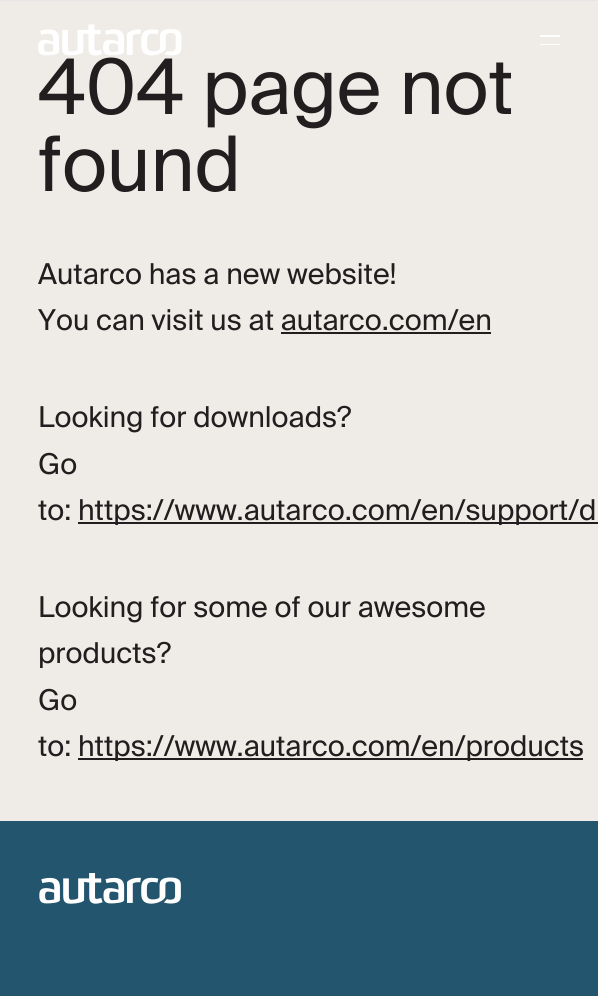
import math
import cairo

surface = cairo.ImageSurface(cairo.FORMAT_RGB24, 598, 996)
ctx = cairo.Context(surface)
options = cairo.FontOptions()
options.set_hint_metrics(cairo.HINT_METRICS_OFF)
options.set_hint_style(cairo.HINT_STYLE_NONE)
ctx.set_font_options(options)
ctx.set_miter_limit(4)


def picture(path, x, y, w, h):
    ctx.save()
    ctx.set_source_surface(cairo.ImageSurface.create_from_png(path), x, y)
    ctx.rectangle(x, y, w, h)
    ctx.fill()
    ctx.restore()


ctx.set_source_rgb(0.937, 0.925, 0.906)
ctx.paint()
ctx.set_source_rgb(0.902, 0.902, 0.902)
ctx.rectangle(0, 0, 598, 1)
ctx.fill()
picture("img1.png", 38, 24, 144, 32)
ctx.set_source_rgb(1, 1, 1)
ctx.rectangle(540, 35, 20, 2)
ctx.fill()
ctx.rectangle(540, 44, 20, 1)
ctx.fill()
ctx.select_font_face("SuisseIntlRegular")
ctx.set_font_size(76.5)
ctx.set_source_rgb(0.133, 0.118, 0.122)
ctx.move_to(38, 114)
ctx.show_text("404 page not")
ctx.move_to(38, 191)
ctx.show_text("found")
ctx.set_font_size(28.75)
ctx.move_to(38, 284)
ctx.show_text("Autarco has a new website!")
ctx.move_to(38, 330)
ctx.show_text("You can visit us at autarco.com/en")
ctx.rectangle(281, 332, 210, 2)
ctx.fill()
ctx.move_to(38, 427)
ctx.show_text("Looking for downloads?")
ctx.move_to(38, 474)
ctx.show_text("Go")
ctx.move_to(38, 520)
ctx.show_text("to:")
ctx.rectangle(78, 522, 520, 2)
ctx.fill()
ctx.move_to(78, 520)
ctx.show_text("https://www.autarco.com/en/support/d")
ctx.move_to(38, 617)
ctx.show_text("Looking for some of our awesome")
ctx.move_to(38, 663)
ctx.show_text("products?")
ctx.move_to(38, 710)
ctx.show_text("Go")
ctx.move_to(38, 756)
ctx.show_text("to:")
ctx.rectangle(78, 758, 505, 2)
ctx.fill()
ctx.move_to(78, 756)
ctx.show_text("https://www.autarco.com/en/products")
ctx.set_source_rgb(0.137, 0.333, 0.431)
ctx.rectangle(0, 821, 598, 175)
ctx.fill()
picture("img2.png", 39, 873, 142, 31)
surface.write_to_png("page.png")
